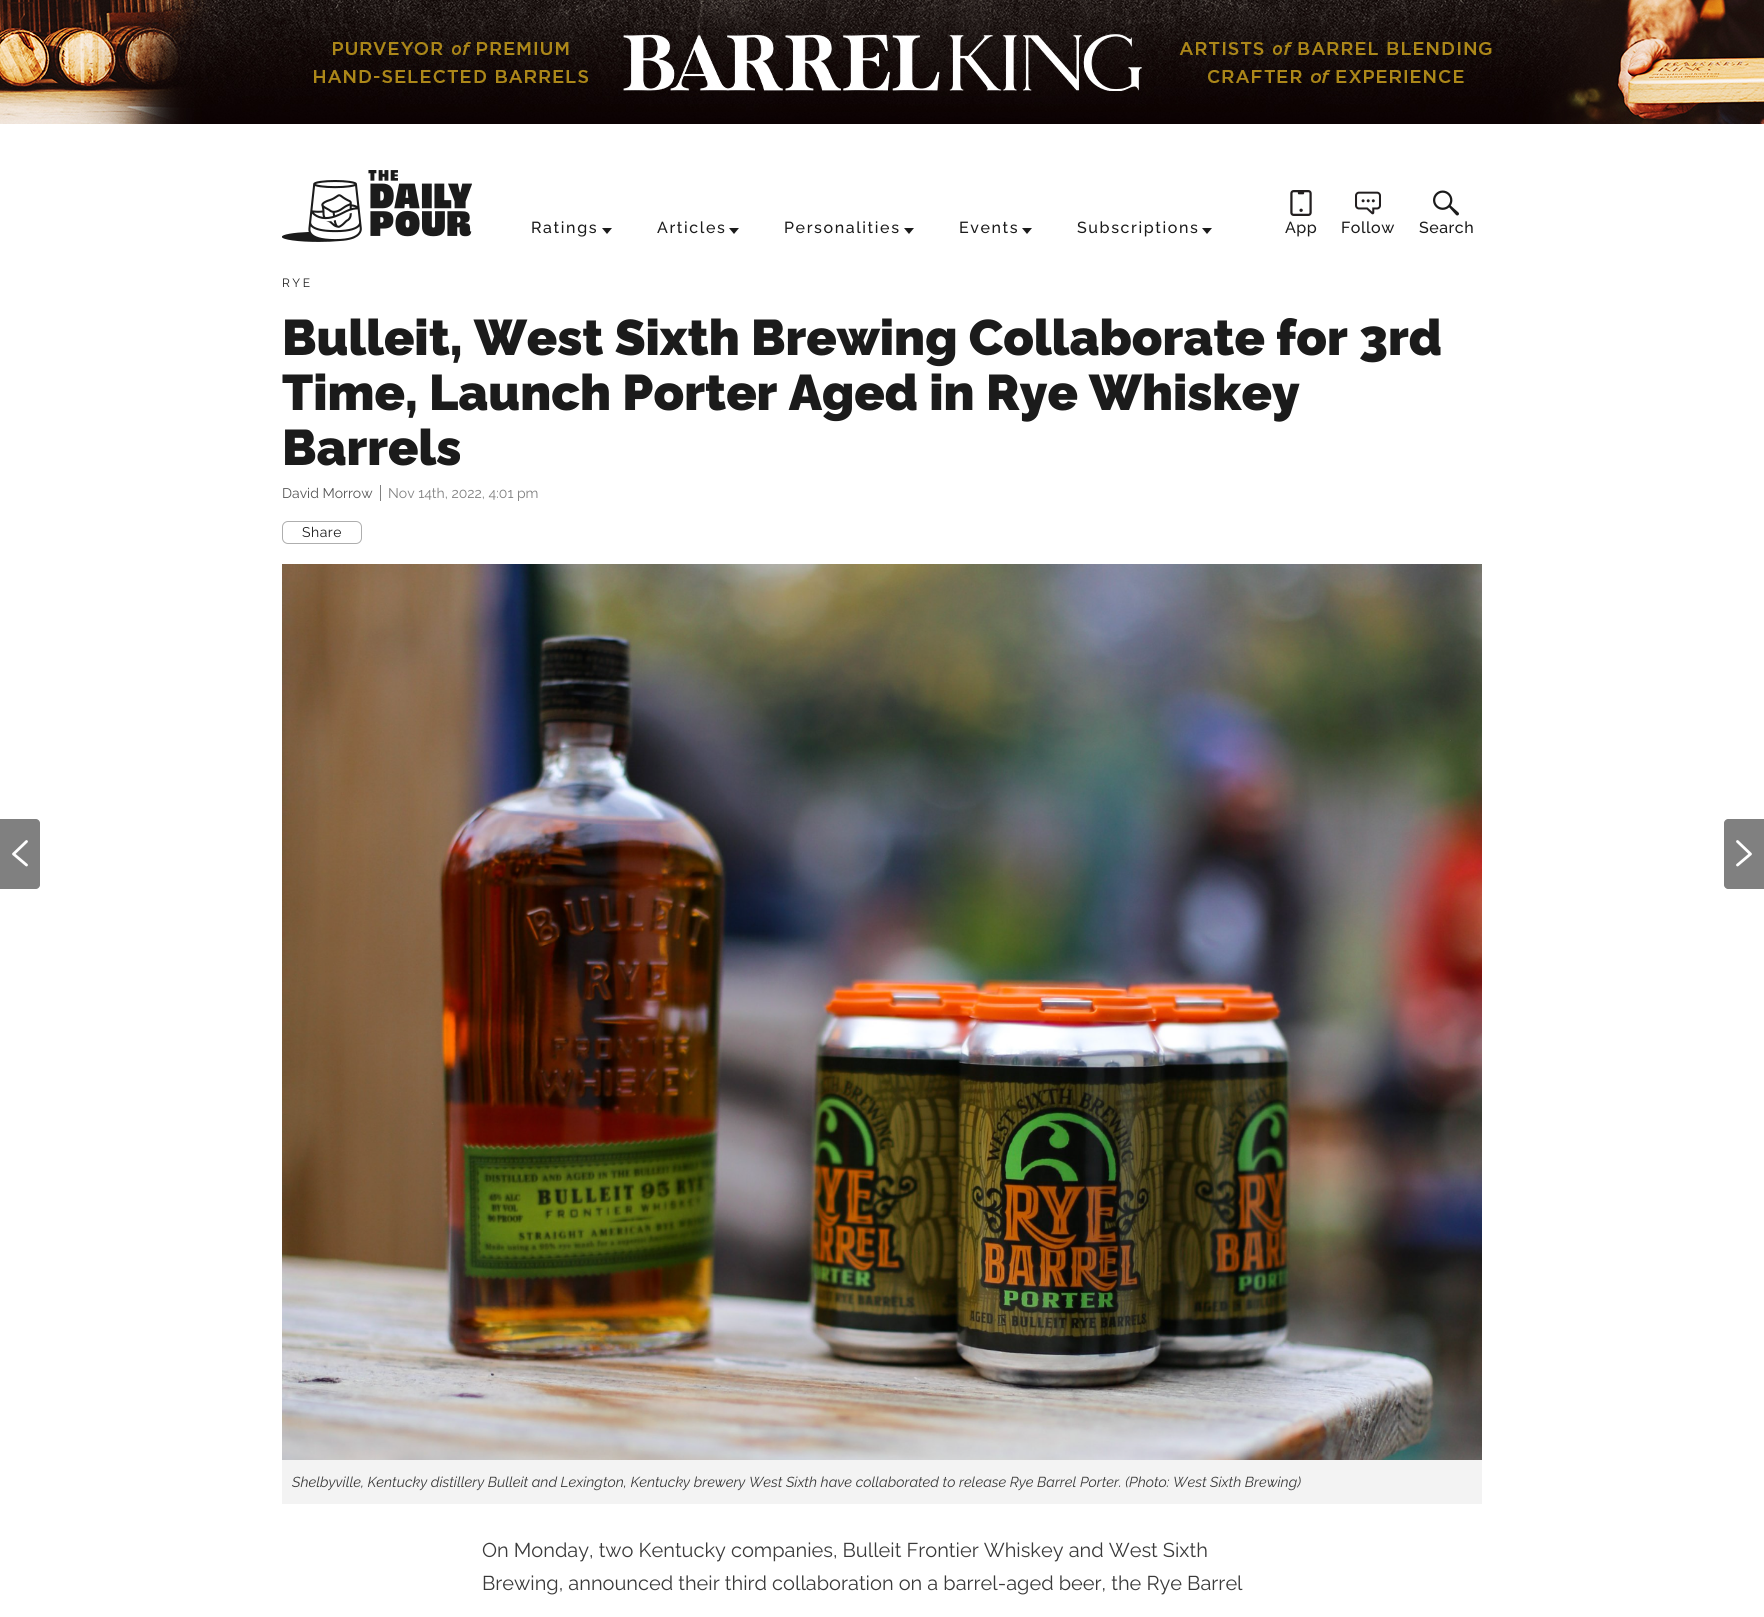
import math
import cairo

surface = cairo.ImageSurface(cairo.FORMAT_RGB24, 1764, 1617)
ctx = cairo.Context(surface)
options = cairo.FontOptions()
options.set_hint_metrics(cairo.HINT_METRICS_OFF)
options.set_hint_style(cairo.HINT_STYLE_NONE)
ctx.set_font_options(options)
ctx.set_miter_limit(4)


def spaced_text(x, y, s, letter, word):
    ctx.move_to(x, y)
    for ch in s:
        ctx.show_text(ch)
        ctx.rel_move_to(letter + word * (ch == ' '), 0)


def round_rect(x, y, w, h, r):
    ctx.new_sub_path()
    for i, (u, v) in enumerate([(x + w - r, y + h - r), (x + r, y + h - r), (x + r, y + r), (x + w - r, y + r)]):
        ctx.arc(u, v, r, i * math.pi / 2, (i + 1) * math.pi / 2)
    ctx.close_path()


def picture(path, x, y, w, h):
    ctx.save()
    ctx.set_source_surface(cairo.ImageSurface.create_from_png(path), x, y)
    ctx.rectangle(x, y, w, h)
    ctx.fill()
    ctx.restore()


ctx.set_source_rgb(1, 1, 1)
ctx.paint()
picture("img1.png", 0, 0, 1764, 124)
picture("img2.png", 282, 170, 190, 72)
ctx.select_font_face("Raleway Medium")
ctx.set_font_size(16)
ctx.set_source_rgb(0.106, 0.106, 0.106)
spaced_text(531, 233, "Ratings", 1.6, 0)
ctx.new_path()
ctx.move_to(602, 228)
ctx.line_to(612, 228)
ctx.line_to(607, 234)
ctx.close_path()
ctx.fill()
spaced_text(657, 233, "Articles", 1.6, 0)
ctx.new_path()
ctx.move_to(729, 228)
ctx.line_to(739, 228)
ctx.line_to(734, 234)
ctx.close_path()
ctx.fill()
spaced_text(784, 233, "Personalities", 1.6, 0)
ctx.new_path()
ctx.move_to(904, 228)
ctx.line_to(914, 228)
ctx.line_to(909, 234)
ctx.close_path()
ctx.fill()
spaced_text(959, 233, "Events", 1.6, 0)
ctx.new_path()
ctx.move_to(1022, 228)
ctx.line_to(1032, 228)
ctx.line_to(1027, 234)
ctx.close_path()
ctx.fill()
spaced_text(1077, 233, "Subscriptions", 1.6, 0)
ctx.new_path()
ctx.move_to(1202, 228)
ctx.line_to(1212, 228)
ctx.line_to(1207, 234)
ctx.close_path()
ctx.fill()
picture("img3.png", 1290, 190, 22, 26)
spaced_text(1285, 233, "App", 0.5, 0)
picture("img4.png", 1355, 191, 26, 24)
spaced_text(1341, 233, "Follow", 0.5, 0)
picture("img5.png", 1433, 190, 26, 26)
spaced_text(1419, 233, "Search", 0.5, 0)
ctx.select_font_face("Raleway")
ctx.set_font_size(12)
spaced_text(282, 287, "RYE", 2.5, 0)
ctx.select_font_face("Raleway Black")
ctx.set_font_size(50)
ctx.move_to(282, 355)
ctx.show_text("Bulleit, West Sixth Brewing Collaborate for 3rd")
ctx.move_to(282, 410)
ctx.show_text("Time, Launch Porter Aged in Rye Whiskey")
ctx.move_to(282, 465)
ctx.show_text("Barrels")
ctx.select_font_face("Raleway")
ctx.set_font_size(14)
ctx.set_source_rgb(0.333, 0.333, 0.333)
ctx.move_to(282, 498)
ctx.show_text("David Morrow")
ctx.set_source_rgb(0.502, 0.502, 0.502)
ctx.move_to(388, 498)
ctx.show_text("Nov 14th, 2022, 4:01 pm")
ctx.rectangle(380, 485, 1, 16)
ctx.fill()
round_rect(282.5, 521.5, 79, 22, 5.5)
ctx.set_source_rgb(0.682, 0.682, 0.682)
ctx.set_line_width(1)
ctx.stroke()
ctx.set_source_rgb(0.106, 0.106, 0.106)
spaced_text(302, 537, "Share", 0.5, 0)
ctx.set_source_rgb(0.953, 0.953, 0.953)
ctx.rectangle(282, 1460, 1200, 44)
ctx.fill()
picture("img6.png", 282, 564, 1200, 896)
ctx.select_font_face("Raleway", cairo.FONT_SLANT_ITALIC)
ctx.set_font_size(14.4)
ctx.set_source_rgb(0.227, 0.227, 0.227)
ctx.move_to(292, 1487)
ctx.show_text("Shelbyville, Kentucky distillery Bulleit and Lexington, Kentucky brewery West Sixth have collaborated to release Rye Barrel Porter. (Photo: West Sixth Brewing)")
ctx.select_font_face("Raleway")
ctx.set_font_size(20)
ctx.move_to(482, 1557)
ctx.show_text("On Monday, two Kentucky companies, Bulleit Frontier Whiskey and West Sixth")
ctx.move_to(482, 1590)
ctx.show_text("Brewing, announced their third collaboration on a barrel-aged beer, the Rye Barrel")
ctx.set_source_rgb(0.502, 0.502, 0.502)
ctx.new_path()
ctx.move_to(0, 819)
ctx.line_to(36, 819)
ctx.curve_to(38, 819, 40, 821, 40, 823)
ctx.line_to(40, 885)
ctx.curve_to(40, 887, 38, 889, 36, 889)
ctx.line_to(0, 889)
ctx.close_path()
ctx.fill()
ctx.new_path()
ctx.move_to(26.5, 841.5)
ctx.line_to(13.5, 854)
ctx.move_to(13.5, 854)
ctx.line_to(26.5, 865)
ctx.set_source_rgb(1, 1, 1)
ctx.set_line_width(2.8)
ctx.set_line_cap(cairo.LINE_CAP_ROUND)
ctx.stroke()
ctx.set_source_rgb(0.502, 0.502, 0.502)
ctx.new_path()
ctx.move_to(1728, 819)
ctx.line_to(1764, 819)
ctx.line_to(1764, 889)
ctx.line_to(1728, 889)
ctx.curve_to(1726, 889, 1724, 887, 1724, 885)
ctx.line_to(1724, 823)
ctx.curve_to(1724, 821, 1726, 819, 1728, 819)
ctx.close_path()
ctx.fill()
ctx.new_path()
ctx.move_to(1737.5, 841.5)
ctx.line_to(1750.5, 854)
ctx.move_to(1750.5, 854)
ctx.line_to(1737.5, 865)
ctx.set_source_rgb(1, 1, 1)
ctx.stroke()
surface.write_to_png("page.png")
